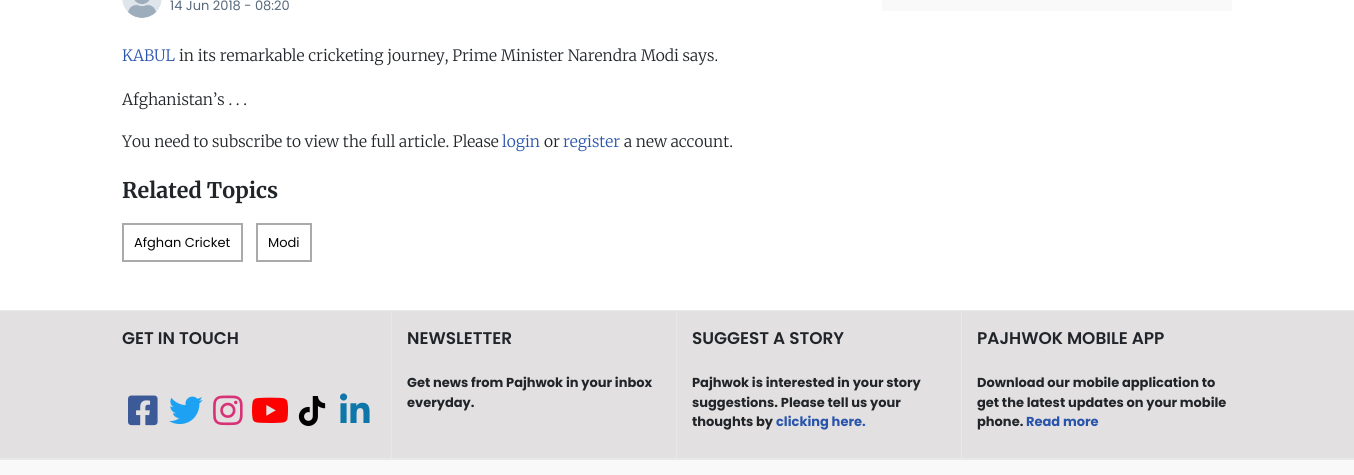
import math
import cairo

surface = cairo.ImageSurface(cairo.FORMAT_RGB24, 1354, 475)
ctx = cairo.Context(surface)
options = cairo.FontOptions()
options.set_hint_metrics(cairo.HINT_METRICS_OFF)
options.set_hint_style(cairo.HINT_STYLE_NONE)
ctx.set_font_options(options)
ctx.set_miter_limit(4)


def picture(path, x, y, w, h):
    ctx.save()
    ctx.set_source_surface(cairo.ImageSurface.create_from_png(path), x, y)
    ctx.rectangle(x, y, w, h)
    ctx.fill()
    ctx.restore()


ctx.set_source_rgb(1, 1, 1)
ctx.paint()
picture("img1.png", 122, 0, 40, 18)
ctx.select_font_face("Poppins")
ctx.set_font_size(13)
ctx.set_source_rgb(0.333, 0.408, 0.482)
ctx.move_to(170, 10)
ctx.show_text("14 Jun 2018 - 08:20")
ctx.select_font_face("Merriweather Light")
ctx.set_font_size(15.6)
ctx.set_source_rgb(0.161, 0.329, 0.671)
ctx.move_to(122, 61)
ctx.show_text("KABUL")
ctx.set_source_rgb(0.129, 0.145, 0.161)
ctx.move_to(179, 61)
ctx.show_text("in its remarkable cricketing journey, Prime Minister Narendra Modi says.")
ctx.move_to(122, 105)
ctx.show_text("Afghanistan’s . . .")
ctx.move_to(122, 147)
ctx.show_text("You need to subscribe to view the full article. Please")
ctx.set_source_rgb(0.161, 0.329, 0.671)
ctx.move_to(502, 147)
ctx.show_text("login")
ctx.set_source_rgb(0.129, 0.145, 0.161)
ctx.move_to(544, 147)
ctx.show_text("or")
ctx.set_source_rgb(0.161, 0.329, 0.671)
ctx.move_to(563, 147)
ctx.show_text("register")
ctx.set_source_rgb(0.129, 0.145, 0.161)
ctx.move_to(624, 147)
ctx.show_text("a new account.")
ctx.select_font_face("Merriweather", cairo.FONT_SLANT_NORMAL, cairo.FONT_WEIGHT_BOLD)
ctx.set_font_size(21.5)
ctx.move_to(122, 198)
ctx.show_text("Related Topics")
ctx.rectangle(123, 224, 119, 37)
ctx.set_source_rgb(0.667, 0.667, 0.667)
ctx.stroke()
ctx.select_font_face("Poppins")
ctx.set_font_size(13)
ctx.set_source_rgb(0.02, 0.02, 0.02)
ctx.move_to(134, 247)
ctx.show_text("Afghan Cricket")
ctx.rectangle(257, 224, 54, 37)
ctx.set_source_rgb(0.667, 0.667, 0.667)
ctx.stroke()
ctx.set_source_rgb(0.02, 0.02, 0.02)
ctx.move_to(268, 247)
ctx.show_text("Modi")
ctx.set_source_rgb(0.973, 0.973, 0.973)
ctx.rectangle(882, 0, 350, 11)
ctx.fill()
ctx.set_source_rgb(0.886, 0.878, 0.878)
ctx.rectangle(0, 311, 1354, 147)
ctx.fill()
ctx.set_source_rgb(0.91, 0.91, 0.91)
ctx.rectangle(0, 310, 1354, 1)
ctx.fill()
ctx.rectangle(391, 311, 1, 147)
ctx.fill()
ctx.select_font_face("Poppins SemiBold")
ctx.set_font_size(16.9)
ctx.set_source_rgb(0.129, 0.145, 0.161)
ctx.move_to(122, 344)
ctx.show_text("GET IN TOUCH")
picture("img2.png", 128, 395, 30, 31)
picture("img3.png", 169, 396, 34, 29)
picture("img4.png", 213, 395, 30, 31)
picture("img5.png", 252, 397, 37, 26)
picture("img6.png", 298, 396, 28, 30)
picture("img7.png", 340, 393, 30, 30)
ctx.set_source_rgb(0.91, 0.91, 0.91)
ctx.rectangle(676, 311, 1, 147)
ctx.fill()
ctx.set_source_rgb(0.129, 0.145, 0.161)
ctx.move_to(407, 344)
ctx.show_text("NEWSLETTER")
ctx.select_font_face("Poppins", cairo.FONT_SLANT_NORMAL, cairo.FONT_WEIGHT_BOLD)
ctx.set_font_size(13)
ctx.move_to(407, 387)
ctx.show_text("Get news from Pajhwok in your inbox")
ctx.move_to(407, 407)
ctx.show_text("everyday.")
ctx.set_source_rgb(0.91, 0.91, 0.91)
ctx.rectangle(961, 311, 1, 147)
ctx.fill()
ctx.select_font_face("Poppins SemiBold")
ctx.set_font_size(16.9)
ctx.set_source_rgb(0.129, 0.145, 0.161)
ctx.move_to(692, 344)
ctx.show_text("SUGGEST A STORY")
ctx.select_font_face("Poppins", cairo.FONT_SLANT_NORMAL, cairo.FONT_WEIGHT_BOLD)
ctx.set_font_size(13)
ctx.move_to(692, 387)
ctx.show_text("Pajhwok is interested in your story")
ctx.move_to(692, 407)
ctx.show_text("suggestions. Please tell us your")
ctx.move_to(692, 426)
ctx.show_text("thoughts by")
ctx.set_source_rgb(0.161, 0.329, 0.671)
ctx.move_to(776, 426)
ctx.show_text("clicking here.")
ctx.select_font_face("Poppins SemiBold")
ctx.set_font_size(16.9)
ctx.set_source_rgb(0.129, 0.145, 0.161)
ctx.move_to(977, 344)
ctx.show_text("PAJHWOK MOBILE APP")
ctx.select_font_face("Poppins", cairo.FONT_SLANT_NORMAL, cairo.FONT_WEIGHT_BOLD)
ctx.set_font_size(13)
ctx.move_to(977, 387)
ctx.show_text("Download our mobile application to")
ctx.move_to(977, 407)
ctx.show_text("get the latest updates on your mobile")
ctx.move_to(977, 426)
ctx.show_text("phone.")
ctx.set_source_rgb(0.161, 0.329, 0.671)
ctx.move_to(1026, 426)
ctx.show_text("Read more")
ctx.set_source_rgb(0.973, 0.973, 0.973)
ctx.rectangle(0, 460, 1354, 15)
ctx.fill()
ctx.set_source_rgb(0.91, 0.91, 0.91)
ctx.rectangle(0, 458, 1354, 2)
ctx.fill()
surface.write_to_png("page.png")
